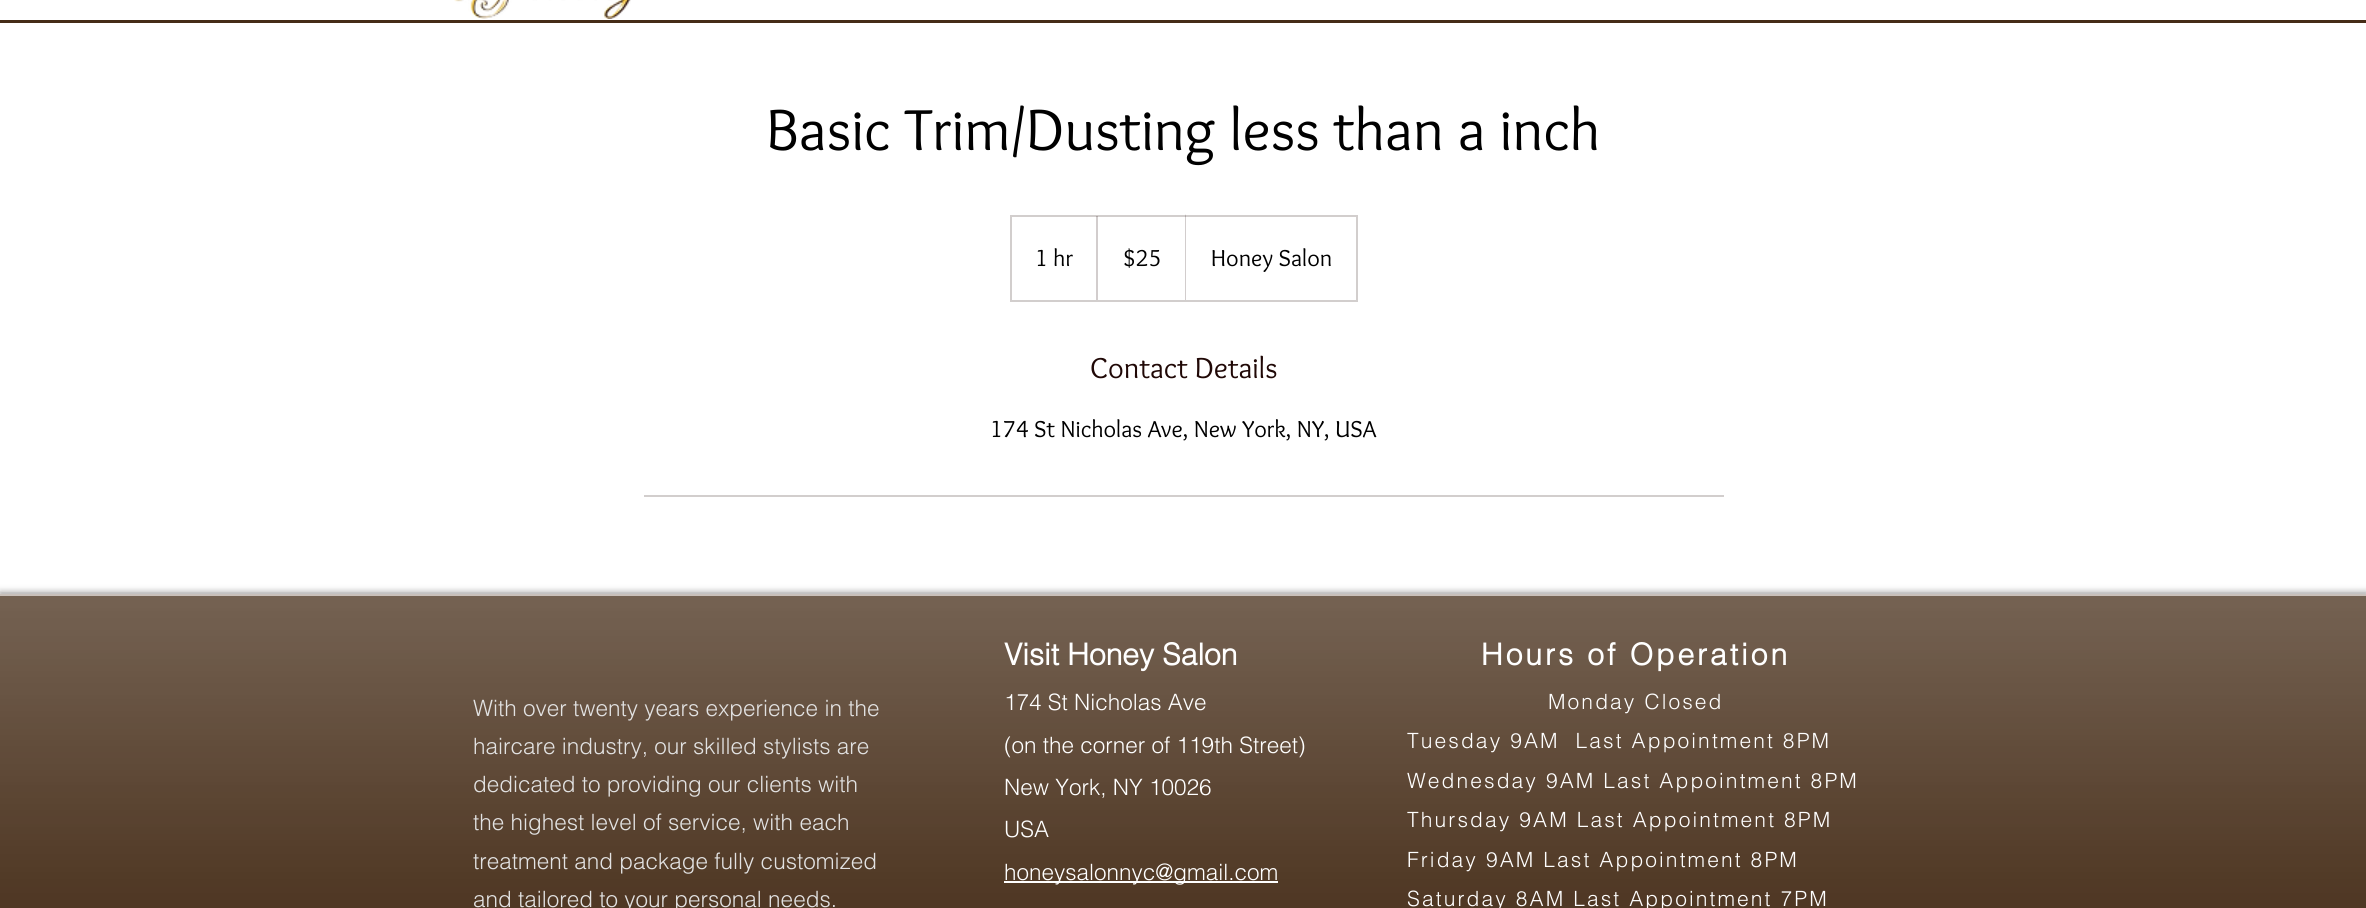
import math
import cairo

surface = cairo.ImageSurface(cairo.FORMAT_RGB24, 2366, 908)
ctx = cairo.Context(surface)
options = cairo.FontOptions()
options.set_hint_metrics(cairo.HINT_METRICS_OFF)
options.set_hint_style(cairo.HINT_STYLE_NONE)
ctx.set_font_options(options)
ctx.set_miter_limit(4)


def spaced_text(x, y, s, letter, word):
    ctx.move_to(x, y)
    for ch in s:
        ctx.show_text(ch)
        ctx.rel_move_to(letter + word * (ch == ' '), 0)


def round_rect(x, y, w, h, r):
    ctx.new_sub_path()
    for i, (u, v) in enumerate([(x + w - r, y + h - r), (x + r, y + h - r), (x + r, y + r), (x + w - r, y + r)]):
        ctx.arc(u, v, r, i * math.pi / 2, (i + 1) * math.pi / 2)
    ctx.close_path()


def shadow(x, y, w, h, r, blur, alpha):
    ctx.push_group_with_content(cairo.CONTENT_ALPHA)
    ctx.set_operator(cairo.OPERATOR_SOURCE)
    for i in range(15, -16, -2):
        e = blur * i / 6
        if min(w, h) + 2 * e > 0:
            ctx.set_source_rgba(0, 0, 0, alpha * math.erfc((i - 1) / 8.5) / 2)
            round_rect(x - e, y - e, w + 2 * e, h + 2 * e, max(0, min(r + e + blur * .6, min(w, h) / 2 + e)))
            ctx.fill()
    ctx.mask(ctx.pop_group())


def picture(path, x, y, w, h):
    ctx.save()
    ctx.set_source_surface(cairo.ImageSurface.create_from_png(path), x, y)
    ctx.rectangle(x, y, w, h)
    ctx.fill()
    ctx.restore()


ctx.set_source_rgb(1, 1, 1)
ctx.paint()
picture("img1.png", 454, 0, 177, 19)
ctx.set_source_rgb(0.271, 0.173, 0.09)
ctx.rectangle(0, 20, 2366, 3)
ctx.fill()
ctx.select_font_face("Overlock")
ctx.set_font_size(60)
ctx.set_source_rgb(0, 0, 0)
ctx.move_to(766, 150)
ctx.show_text("Basic Trim/Dusting less than a inch")
ctx.rectangle(1011, 216, 346, 85)
ctx.set_source_rgb(0.824, 0.808, 0.804)
ctx.stroke()
ctx.set_font_size(24)
ctx.set_source_rgb(0, 0, 0)
ctx.move_to(1035, 266)
ctx.show_text("1 hr")
ctx.save()
ctx.rectangle(1011, 216, 345, 84)
ctx.clip()
ctx.set_source_rgba(0.125, 0.035, 0.024, 0.2)
ctx.new_path()
ctx.move_to(1096, 300)
ctx.line_to(1096, 214)
ctx.line_to(1098, 216)
ctx.line_to(1098, 300)
ctx.close_path()
ctx.fill()
ctx.restore()
ctx.move_to(1123, 266)
ctx.show_text("$25")
ctx.set_source_rgba(0.125, 0.035, 0.024, 0.2)
ctx.new_path()
ctx.move_to(1185, 300)
ctx.line_to(1185, 214)
ctx.line_to(1186, 216)
ctx.line_to(1186, 300)
ctx.close_path()
ctx.fill()
ctx.set_source_rgb(0, 0, 0)
ctx.move_to(1211, 266)
ctx.show_text("Honey Salon")
ctx.set_font_size(30)
ctx.set_source_rgb(0.125, 0.035, 0.024)
ctx.move_to(1090, 378)
ctx.show_text("Contact Details")
ctx.set_font_size(24)
ctx.set_source_rgb(0, 0, 0)
ctx.move_to(990, 437)
ctx.show_text("174 St Nicholas Ave, New York, NY, USA")
ctx.set_source_rgb(0.824, 0.808, 0.804)
ctx.rectangle(644, 495, 1080, 2)
ctx.fill()
ctx.set_source_rgb(0, 0, 0)
shadow(0, 594, 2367, 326, 0, 4, 0.6)
ctx.set_source_rgb(0.271, 0.173, 0.09)
ctx.rectangle(0, 596, 2366, 312)
ctx.fill()
picture("img2.png", 0, 593, 2366, 315)
ctx.set_source_rgb(0.784, 0.753, 0.729)
ctx.rectangle(0, 594, 2366, 2)
ctx.fill()
ctx.select_font_face("helvetica Light")
ctx.set_font_size(22.5)
ctx.set_source_rgb(0.886, 0.886, 0.886)
ctx.move_to(473, 716)
ctx.show_text("With over twenty years experience in the")
ctx.move_to(473, 754)
ctx.show_text("haircare industry, our skilled stylists are")
ctx.move_to(473, 792)
ctx.show_text("dedicated to providing our clients with")
ctx.move_to(473, 830)
ctx.show_text("the highest level of service, with each")
ctx.move_to(473, 869)
ctx.show_text("treatment and package fully customized")
ctx.move_to(473, 907)
ctx.show_text("and tailored to your personal needs.")
ctx.select_font_face("helvetica", cairo.FONT_SLANT_NORMAL, cairo.FONT_WEIGHT_BOLD)
ctx.set_font_size(30)
ctx.set_source_rgb(1, 1, 1)
ctx.move_to(1004, 665)
ctx.show_text("Visit Honey Salon")
ctx.select_font_face("helvetica Light")
ctx.set_font_size(22.5)
ctx.move_to(1004, 710)
ctx.show_text("174 St Nicholas Ave")
ctx.move_to(1004, 753)
ctx.show_text("(on the corner of 119th Street)")
ctx.move_to(1004, 795)
ctx.show_text("New York, NY 10026")
ctx.move_to(1004, 837)
ctx.show_text("USA")
ctx.rectangle(1004, 881, 274, 2)
ctx.fill()
ctx.move_to(1004, 880)
ctx.show_text("honeysalonnyc@gmail.com")
ctx.select_font_face("helvetica", cairo.FONT_SLANT_NORMAL, cairo.FONT_WEIGHT_BOLD)
ctx.set_font_size(30)
spaced_text(1481, 665, "Hours of Operation", 3, 0)
ctx.select_font_face("helvetica Light")
ctx.set_font_size(21)
spaced_text(1548, 709, "Monday Closed", 2.1, 0)
spaced_text(1407, 748, "Tuesday 9AM  Last Appointment 8PM", 2.1, 0)
spaced_text(1407, 788, "Wednesday 9AM Last Appointment 8PM", 2.1, 0)
spaced_text(1407, 827, "Thursday 9AM Last Appointment 8PM", 2.1, 0)
spaced_text(1407, 867, "Friday 9AM Last Appointment 8PM", 2.1, 0)
spaced_text(1407, 906, "Saturday 8AM Last Appointment 7PM", 2.1, 0)
surface.write_to_png("page.png")
